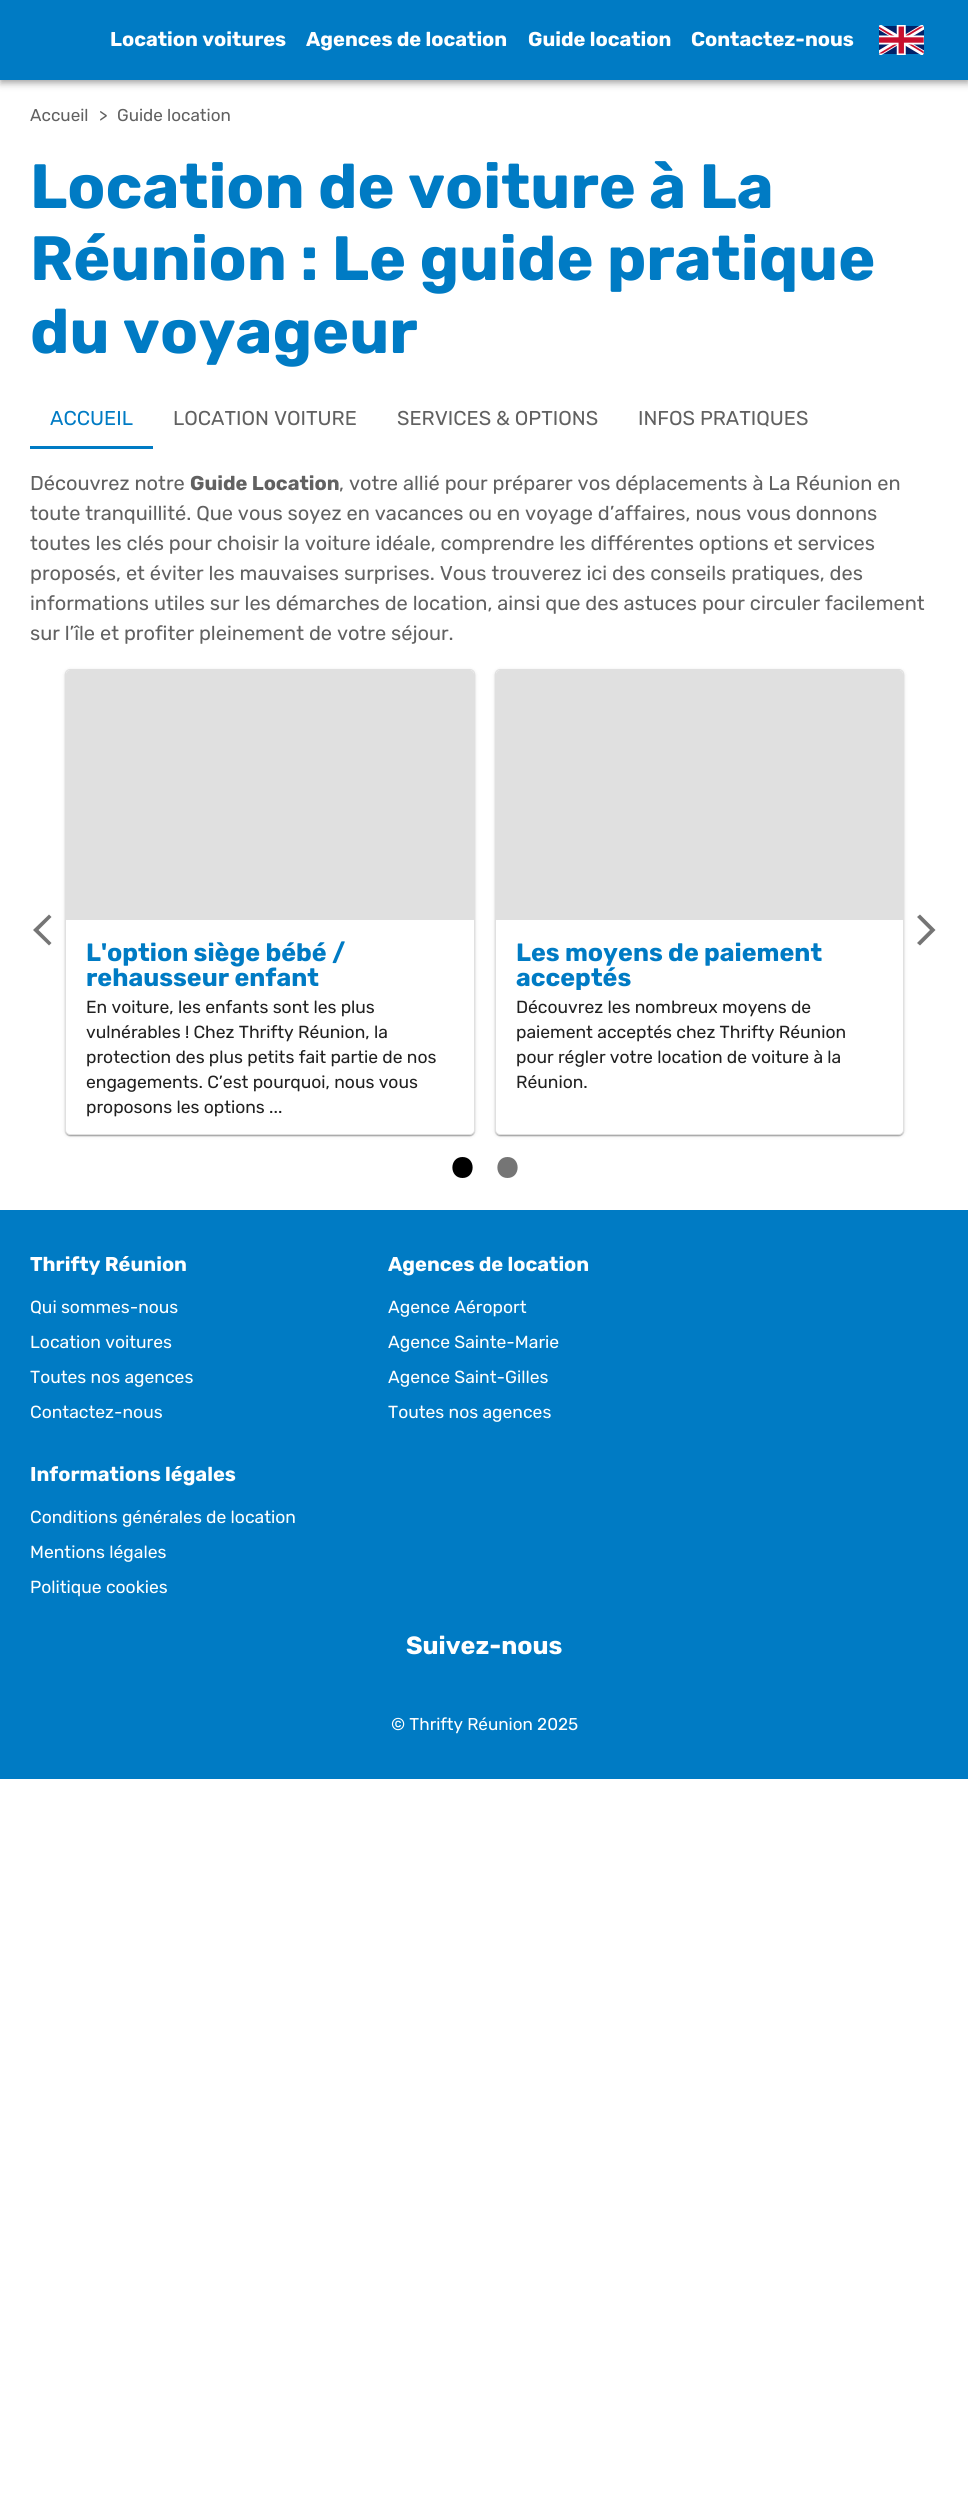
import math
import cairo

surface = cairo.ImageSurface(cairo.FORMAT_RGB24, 968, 2509)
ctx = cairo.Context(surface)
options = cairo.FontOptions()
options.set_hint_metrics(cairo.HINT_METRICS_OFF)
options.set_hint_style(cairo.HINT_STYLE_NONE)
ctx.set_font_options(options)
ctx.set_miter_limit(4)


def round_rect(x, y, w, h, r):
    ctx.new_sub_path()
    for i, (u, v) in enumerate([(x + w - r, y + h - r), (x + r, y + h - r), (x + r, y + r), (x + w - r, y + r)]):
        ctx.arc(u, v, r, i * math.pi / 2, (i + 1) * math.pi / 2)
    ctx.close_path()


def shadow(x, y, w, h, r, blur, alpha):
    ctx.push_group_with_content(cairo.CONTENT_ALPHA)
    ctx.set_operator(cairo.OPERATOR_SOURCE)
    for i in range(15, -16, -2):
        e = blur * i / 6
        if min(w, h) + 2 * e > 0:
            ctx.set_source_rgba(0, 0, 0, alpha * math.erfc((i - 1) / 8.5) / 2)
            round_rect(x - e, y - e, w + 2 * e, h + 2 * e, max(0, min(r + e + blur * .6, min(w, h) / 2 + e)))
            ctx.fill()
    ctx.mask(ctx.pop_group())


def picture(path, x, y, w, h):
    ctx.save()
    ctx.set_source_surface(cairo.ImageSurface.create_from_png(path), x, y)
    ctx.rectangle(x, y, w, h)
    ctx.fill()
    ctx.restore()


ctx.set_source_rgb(1, 1, 1)
ctx.paint()
ctx.set_source_rgb(0, 0, 0)
shadow(0, 1, 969, 80, 0, 6, 0.12)
shadow(0, 5, 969, 80, 0, 3, 0.14)
shadow(1, 4, 967, 77, 0, 2.5, 0.2)
ctx.set_source_rgb(0, 0.482, 0.769)
ctx.rectangle(0, 0, 968, 80)
ctx.fill()
ctx.select_font_face("Rubik", cairo.FONT_SLANT_NORMAL, cairo.FONT_WEIGHT_BOLD)
ctx.set_font_size(20)
ctx.set_source_rgb(1, 1, 1)
ctx.move_to(110, 46)
ctx.show_text("Location voitures")
ctx.move_to(306, 46)
ctx.show_text("Agences de location")
ctx.move_to(528, 46)
ctx.show_text("Guide location")
ctx.move_to(691, 46)
ctx.show_text("Contactez-nous")
picture("img1.png", 879, 25, 45, 30)
ctx.select_font_face("Rubik")
ctx.set_font_size(17.1)
ctx.set_source_rgb(0.38, 0.38, 0.38)
ctx.move_to(30, 121)
ctx.show_text("Accueil")
ctx.move_to(99, 121)
ctx.show_text(">")
ctx.move_to(117, 121)
ctx.show_text("Guide location")
ctx.select_font_face("Rubik", cairo.FONT_SLANT_NORMAL, cairo.FONT_WEIGHT_BOLD)
ctx.set_font_size(62.5)
ctx.set_source_rgb(0, 0.482, 0.769)
ctx.move_to(30, 208)
ctx.show_text("Location de voiture à La")
ctx.move_to(30, 280)
ctx.show_text("Réunion : Le guide pratique")
ctx.move_to(30, 353)
ctx.show_text("du voyageur")
ctx.select_font_face("Rubik")
ctx.set_font_size(20)
ctx.move_to(50, 425)
ctx.show_text("ACCUEIL")
ctx.set_source_rgb(0.38, 0.38, 0.38)
ctx.move_to(173, 425)
ctx.show_text("LOCATION VOITURE")
ctx.move_to(397, 425)
ctx.show_text("SERVICES & OPTIONS")
ctx.move_to(638, 425)
ctx.show_text("INFOS PRATIQUES")
ctx.set_source_rgb(0, 0.482, 0.769)
ctx.rectangle(30, 446, 123, 3)
ctx.fill()
ctx.set_source_rgb(0.38, 0.38, 0.38)
ctx.move_to(30, 490)
ctx.show_text("Découvrez notre")
ctx.select_font_face("Rubik", cairo.FONT_SLANT_NORMAL, cairo.FONT_WEIGHT_BOLD)
ctx.move_to(190, 490)
ctx.show_text("Guide Location")
ctx.select_font_face("Rubik")
ctx.move_to(339, 490)
ctx.show_text(", votre allié pour préparer vos déplacements à La Réunion en")
ctx.move_to(30, 520)
ctx.show_text("toute tranquillité. Que vous soyez en vacances ou en voyage d’affaires, nous vous donnons")
ctx.move_to(30, 550)
ctx.show_text("toutes les clés pour choisir la voiture idéale, comprendre les différentes options et services")
ctx.move_to(30, 580)
ctx.show_text("proposés, et éviter les mauvaises surprises. Vous trouverez ici des conseils pratiques, des")
ctx.move_to(30, 610)
ctx.show_text("informations utiles sur les démarches de location, ainsi que des astuces pour circuler facilement")
ctx.move_to(30, 640)
ctx.show_text("sur l’île et profiter pleinement de votre séjour.")
ctx.set_source_rgb(0.459, 0.459, 0.459)
ctx.new_path()
ctx.move_to(51.5, 917)
ctx.line_to(49, 914.5)
ctx.line_to(33, 930)
ctx.line_to(49, 945.5)
ctx.line_to(51.5, 943)
ctx.line_to(38.5, 930)
ctx.close_path()
ctx.fill()
ctx.new_path()
ctx.move_to(917, 943)
ctx.line_to(920, 945.5)
ctx.line_to(935.5, 930)
ctx.line_to(920, 914.5)
ctx.line_to(917, 917)
ctx.line_to(930, 930)
ctx.close_path()
ctx.fill()
ctx.set_source_rgb(0, 0, 0)
shadow(65, 670, 410, 466, 5, 2, 0.12)
shadow(65, 670, 410, 466, 5, 0.5, 0.14)
shadow(66, 673, 408, 463, 4, 0.5, 0.2)
ctx.set_source_rgb(1, 1, 1)
round_rect(65.5, 669.5, 409, 465, 4.5)
ctx.fill_preserve()
ctx.set_source_rgb(0.878, 0.878, 0.878)
ctx.set_line_width(1)
ctx.stroke()
ctx.new_path()
ctx.move_to(70, 670)
ctx.line_to(470, 670)
ctx.curve_to(472, 670, 474, 672, 474, 674)
ctx.line_to(474, 920)
ctx.line_to(66, 920)
ctx.line_to(66, 674)
ctx.curve_to(66, 672, 68, 670, 70, 670)
ctx.close_path()
ctx.fill()
ctx.select_font_face("Rubik", cairo.FONT_SLANT_NORMAL, cairo.FONT_WEIGHT_BOLD)
ctx.set_font_size(25)
ctx.set_source_rgb(0, 0.482, 0.769)
ctx.move_to(86, 961)
ctx.show_text("L'option siège bébé /")
ctx.move_to(86, 986)
ctx.show_text("rehausseur enfant")
ctx.select_font_face("Rubik")
ctx.set_font_size(17.5)
ctx.set_source_rgb(0.129, 0.129, 0.129)
ctx.move_to(86, 1013)
ctx.show_text("En voiture, les enfants sont les plus")
ctx.move_to(86, 1038)
ctx.show_text("vulnérables ! Chez Thrifty Réunion, la")
ctx.move_to(86, 1063)
ctx.show_text("protection des plus petits fait partie de nos")
ctx.move_to(86, 1088)
ctx.show_text("engagements. C’est pourquoi, nous vous")
ctx.move_to(86, 1113)
ctx.show_text("proposons les options ...")
ctx.set_source_rgb(0, 0, 0)
shadow(495, 670, 409, 466, 5, 2, 0.12)
shadow(495, 670, 409, 466, 5, 0.5, 0.14)
shadow(496, 673, 407, 463, 4, 0.5, 0.2)
ctx.set_source_rgb(1, 1, 1)
round_rect(495.5, 669.5, 408, 465, 4.5)
ctx.fill_preserve()
ctx.set_source_rgb(0.878, 0.878, 0.878)
ctx.stroke()
ctx.new_path()
ctx.move_to(500, 670)
ctx.line_to(899, 670)
ctx.curve_to(901, 670, 903, 672, 903, 674)
ctx.line_to(903, 920)
ctx.line_to(496, 920)
ctx.line_to(496, 674)
ctx.curve_to(496, 672, 498, 670, 500, 670)
ctx.close_path()
ctx.fill()
ctx.select_font_face("Rubik", cairo.FONT_SLANT_NORMAL, cairo.FONT_WEIGHT_BOLD)
ctx.set_font_size(25)
ctx.set_source_rgb(0, 0.482, 0.769)
ctx.move_to(516, 961)
ctx.show_text("Les moyens de paiement")
ctx.save()
ctx.rectangle(516, 940, 367, 50)
ctx.clip()
ctx.move_to(516, 986)
ctx.show_text("acceptés")
ctx.restore()
ctx.select_font_face("Rubik")
ctx.set_font_size(17.5)
ctx.set_source_rgb(0.129, 0.129, 0.129)
ctx.move_to(516, 1013)
ctx.show_text("Découvrez les nombreux moyens de")
ctx.move_to(516, 1038)
ctx.show_text("paiement acceptés chez Thrifty Réunion")
ctx.move_to(516, 1063)
ctx.show_text("pour régler votre location de voiture à la")
ctx.move_to(516, 1088)
ctx.show_text("Réunion.")
ctx.set_source_rgb(0, 0, 0)
ctx.new_path()
ctx.move_to(462.5, 1157)
ctx.curve_to(449, 1157, 449, 1178, 462.5, 1178)
ctx.curve_to(476, 1178, 476, 1157, 462.5, 1157)
ctx.close_path()
ctx.fill()
ctx.set_source_rgb(0.459, 0.459, 0.459)
ctx.new_path()
ctx.move_to(507.5, 1157)
ctx.curve_to(494, 1157, 494, 1178, 507.5, 1178)
ctx.curve_to(521, 1178, 521, 1157, 507.5, 1157)
ctx.close_path()
ctx.fill()
ctx.set_source_rgb(0, 0.482, 0.769)
ctx.rectangle(0, 1210, 968, 569)
ctx.fill()
ctx.select_font_face("Rubik", cairo.FONT_SLANT_NORMAL, cairo.FONT_WEIGHT_BOLD)
ctx.set_font_size(20)
ctx.set_source_rgb(1, 1, 1)
ctx.move_to(30, 1271)
ctx.show_text("Thrifty Réunion")
ctx.select_font_face("Rubik")
ctx.set_font_size(17.5)
ctx.move_to(30, 1313)
ctx.show_text("Qui sommes-nous")
ctx.move_to(30, 1348)
ctx.show_text("Location voitures")
ctx.move_to(30, 1383)
ctx.show_text("Toutes nos agences")
ctx.move_to(30, 1418)
ctx.show_text("Contactez-nous")
ctx.select_font_face("Rubik", cairo.FONT_SLANT_NORMAL, cairo.FONT_WEIGHT_BOLD)
ctx.set_font_size(20)
ctx.move_to(388, 1271)
ctx.show_text("Agences de location")
ctx.select_font_face("Rubik")
ctx.set_font_size(17.5)
ctx.move_to(388, 1313)
ctx.show_text("Agence Aéroport")
ctx.move_to(388, 1348)
ctx.show_text("Agence Sainte-Marie")
ctx.move_to(388, 1383)
ctx.show_text("Agence Saint-Gilles")
ctx.move_to(388, 1418)
ctx.show_text("Toutes nos agences")
ctx.select_font_face("Rubik", cairo.FONT_SLANT_NORMAL, cairo.FONT_WEIGHT_BOLD)
ctx.set_font_size(20)
ctx.move_to(30, 1481)
ctx.show_text("Informations légales")
ctx.select_font_face("Rubik")
ctx.set_font_size(17.5)
ctx.move_to(30, 1523)
ctx.show_text("Conditions générales de location")
ctx.move_to(30, 1558)
ctx.show_text("Mentions légales")
ctx.move_to(30, 1593)
ctx.show_text("Politique cookies")
ctx.select_font_face("Rubik", cairo.FONT_SLANT_NORMAL, cairo.FONT_WEIGHT_BOLD)
ctx.set_font_size(25)
ctx.move_to(406, 1654)
ctx.show_text("Suivez-nous")
ctx.select_font_face("Rubik")
ctx.set_font_size(17.1)
ctx.move_to(391, 1730)
ctx.show_text("© Thrifty Réunion 2025")
surface.write_to_png("page.png")
